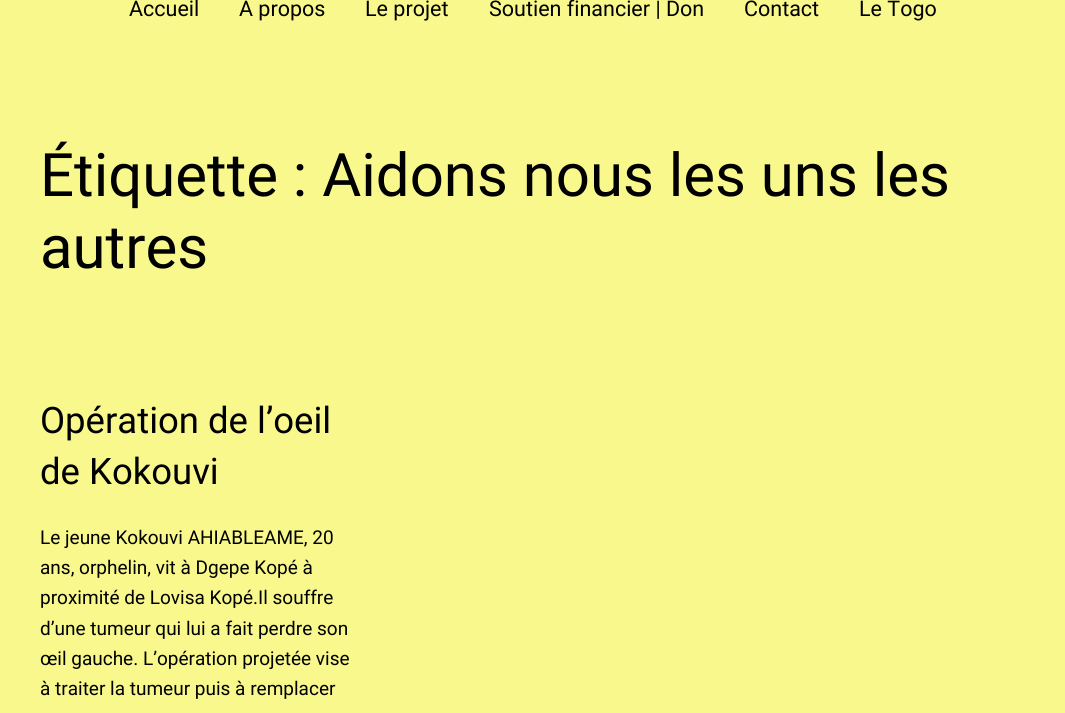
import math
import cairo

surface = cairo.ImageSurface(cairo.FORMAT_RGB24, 1065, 713)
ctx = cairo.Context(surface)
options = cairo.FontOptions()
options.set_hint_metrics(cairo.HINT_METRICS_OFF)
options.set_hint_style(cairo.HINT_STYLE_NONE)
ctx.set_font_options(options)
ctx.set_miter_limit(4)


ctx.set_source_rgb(0.969, 0.969, 0.553)
ctx.paint()
ctx.select_font_face("Roboto")
ctx.set_font_size(21.5)
ctx.set_source_rgb(0, 0, 0)
ctx.move_to(129, 16)
ctx.show_text("Accueil")
ctx.move_to(239, 16)
ctx.show_text("A propos")
ctx.move_to(365, 16)
ctx.show_text("Le projet")
ctx.move_to(489, 16)
ctx.show_text("Soutien financier | Don")
ctx.move_to(744, 16)
ctx.show_text("Contact")
ctx.move_to(859, 16)
ctx.show_text("Le Togo")
ctx.set_font_size(59.9)
ctx.move_to(40, 196)
ctx.show_text("Étiquette : Aidons nous les uns les")
ctx.move_to(40, 268)
ctx.show_text("autres")
ctx.set_font_size(36.5)
ctx.move_to(40, 433)
ctx.show_text("Opération de l’oeil")
ctx.move_to(40, 484)
ctx.show_text("de Kokouvi")
ctx.set_font_size(19)
ctx.move_to(40, 544)
ctx.show_text("Le jeune Kokouvi AHIABLEAME, 20")
ctx.move_to(40, 574)
ctx.show_text("ans, orphelin, vit à Dgepe Kopé à")
ctx.move_to(40, 604)
ctx.show_text("proximité de Lovisa Kopé.Il souffre")
ctx.move_to(40, 635)
ctx.show_text("d’une tumeur qui lui a fait perdre son")
ctx.move_to(40, 665)
ctx.show_text("œil gauche. L’opération projetée vise")
ctx.move_to(40, 695)
ctx.show_text("à traiter la tumeur puis à remplacer")
surface.write_to_png("page.png")
